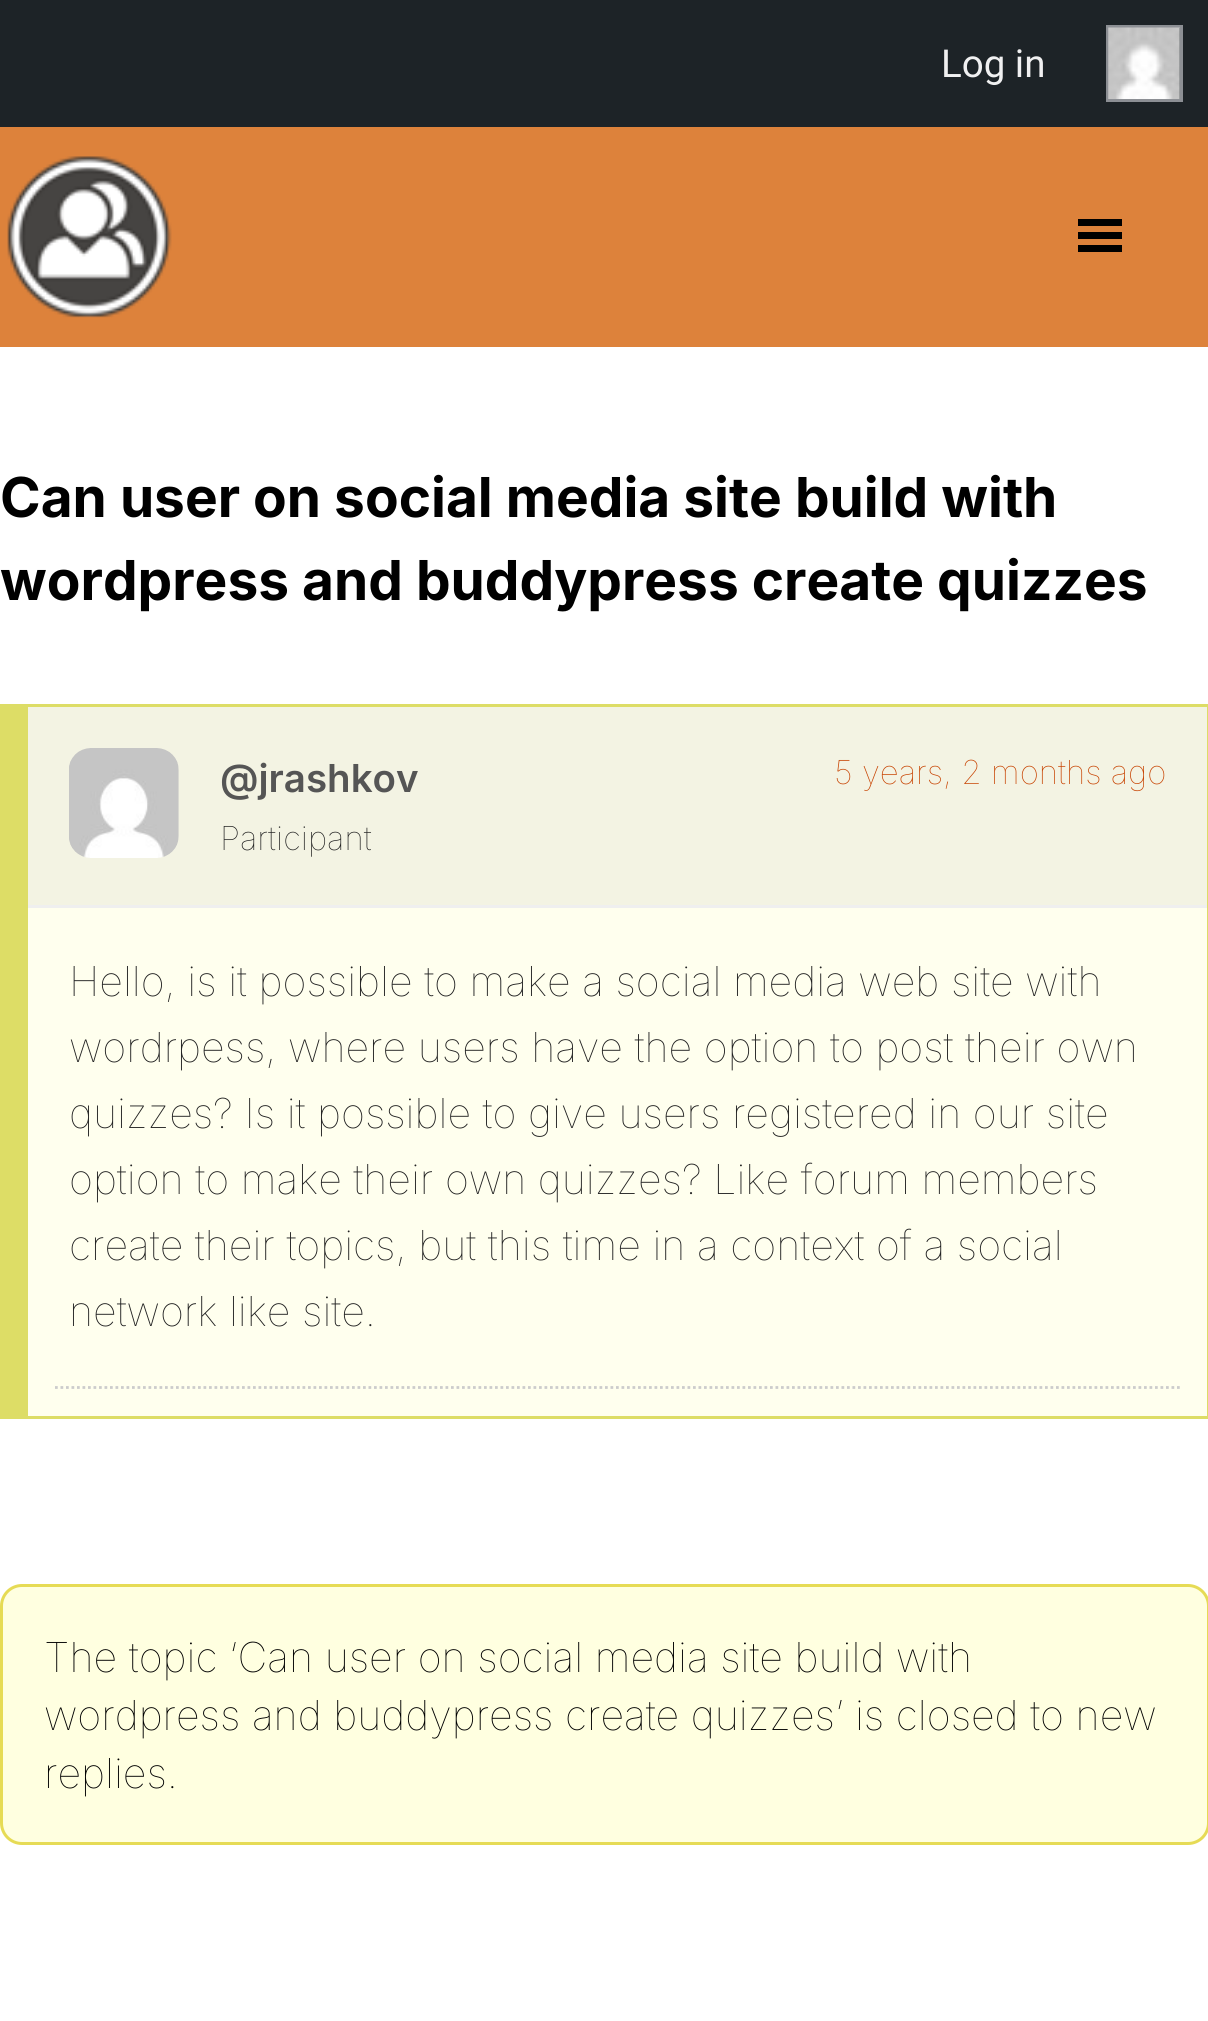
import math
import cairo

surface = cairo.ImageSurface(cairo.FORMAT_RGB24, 1208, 2021)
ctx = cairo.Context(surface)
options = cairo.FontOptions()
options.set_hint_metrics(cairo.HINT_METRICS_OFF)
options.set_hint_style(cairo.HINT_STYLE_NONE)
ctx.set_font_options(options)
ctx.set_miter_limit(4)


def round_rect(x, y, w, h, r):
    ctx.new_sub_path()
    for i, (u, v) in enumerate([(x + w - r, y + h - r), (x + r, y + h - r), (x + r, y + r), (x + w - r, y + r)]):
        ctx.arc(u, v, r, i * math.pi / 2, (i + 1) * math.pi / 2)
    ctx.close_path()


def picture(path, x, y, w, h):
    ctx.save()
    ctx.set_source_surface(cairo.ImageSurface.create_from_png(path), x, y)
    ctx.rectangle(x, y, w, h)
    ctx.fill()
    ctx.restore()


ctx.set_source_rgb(1, 1, 1)
ctx.paint()
ctx.set_source_rgb(0.114, 0.137, 0.153)
ctx.rectangle(0, 0, 1208, 127)
ctx.fill()
ctx.select_font_face("Roboto")
ctx.set_font_size(38.5)
ctx.set_source_rgb(0.941, 0.941, 0.945)
ctx.move_to(941, 77)
ctx.show_text("Log in")
ctx.rectangle(1107.5, 26.5, 74, 74)
ctx.set_source_rgb(0.549, 0.561, 0.58)
ctx.set_line_width(3)
ctx.stroke()
picture("img1.png", 1108, 27, 72, 72)
ctx.set_source_rgb(0.867, 0.51, 0.231)
ctx.rectangle(0, 127, 1208, 220)
ctx.fill()
picture("img2.png", 7, 156, 165, 162)
ctx.set_source_rgb(0, 0, 0)
ctx.new_path()
ctx.move_to(1122, 226)
ctx.line_to(1122, 219)
ctx.line_to(1078, 219)
ctx.line_to(1078, 226)
ctx.close_path()
ctx.move_to(1122, 239)
ctx.line_to(1122, 232)
ctx.line_to(1078, 232)
ctx.line_to(1078, 239)
ctx.close_path()
ctx.move_to(1122, 252)
ctx.line_to(1122, 245)
ctx.line_to(1078, 245)
ctx.line_to(1078, 252)
ctx.close_path()
ctx.fill()
ctx.select_font_face("Inter", cairo.FONT_SLANT_NORMAL, cairo.FONT_WEIGHT_BOLD)
ctx.set_font_size(55)
ctx.move_to(0, 517)
ctx.show_text("Can user on social media site build with")
ctx.move_to(0, 600)
ctx.show_text("wordpress and buddypress create quizzes")
ctx.set_source_rgb(0.867, 0.867, 0.4)
ctx.rectangle(28, 704, 1180, 3)
ctx.fill()
ctx.rectangle(1207, 704, 1, 715)
ctx.fill()
ctx.rectangle(28, 1416, 1180, 3)
ctx.fill()
ctx.rectangle(0, 704, 28, 715)
ctx.fill()
ctx.set_source_rgb(1, 1, 0.933)
ctx.rectangle(28, 908, 1179, 508)
ctx.fill()
ctx.set_source_rgb(0.953, 0.953, 0.89)
ctx.rectangle(28, 707, 1179, 198)
ctx.fill()
ctx.set_source_rgb(0.937, 0.937, 0.937)
ctx.rectangle(28, 905, 1179, 3)
ctx.fill()
picture("img3.png", 69, 748, 110, 110)
ctx.select_font_face("Inter SemiBold")
ctx.set_font_size(38.5)
ctx.set_source_rgb(0.333, 0.333, 0.333)
ctx.move_to(220, 792)
ctx.show_text("@jrashkov")
ctx.select_font_face("Inter Thin")
ctx.set_font_size(33)
ctx.set_source_rgb(0.133, 0.133, 0.133)
ctx.move_to(220, 850)
ctx.show_text("Participant")
ctx.set_source_rgb(0.78, 0.259, 0)
ctx.move_to(834, 784)
ctx.show_text("5 years, 2 months ago")
ctx.set_font_size(41.25)
ctx.set_source_rgb(0.133, 0.133, 0.133)
ctx.move_to(69, 996)
ctx.show_text("Hello, is it possible to make a social media web site with")
ctx.move_to(69, 1062)
ctx.show_text("wordrpess, where users have the option to post their own")
ctx.move_to(69, 1128)
ctx.show_text("quizzes? Is it possible to give users registered in our site")
ctx.move_to(69, 1194)
ctx.show_text("option to make their own quizzes? Like forum members")
ctx.move_to(69, 1260)
ctx.show_text("create their topics, but this time in a context of a social")
ctx.move_to(69, 1326)
ctx.show_text("network like site.")
ctx.new_path()
ctx.move_to(55, 1387.5)
ctx.line_to(1180, 1387.5)
ctx.set_source_rgb(0.8, 0.8, 0.8)
ctx.set_line_width(2.8)
ctx.set_dash([2.75, 2.75])
ctx.stroke()
ctx.set_source_rgb(1, 1, 0.878)
round_rect(1.5, 1585.5, 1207, 258, 20.5)
ctx.fill_preserve()
ctx.set_source_rgb(0.902, 0.859, 0.333)
ctx.set_line_width(3)
ctx.set_dash([])
ctx.stroke()
ctx.set_source_rgb(0, 0, 0)
ctx.move_to(44, 1672)
ctx.show_text("The topic ‘Can user on social media site build with")
ctx.move_to(44, 1730)
ctx.show_text("wordpress and buddypress create quizzes’ is closed to new")
ctx.move_to(44, 1788)
ctx.show_text("replies.")
surface.write_to_png("page.png")
